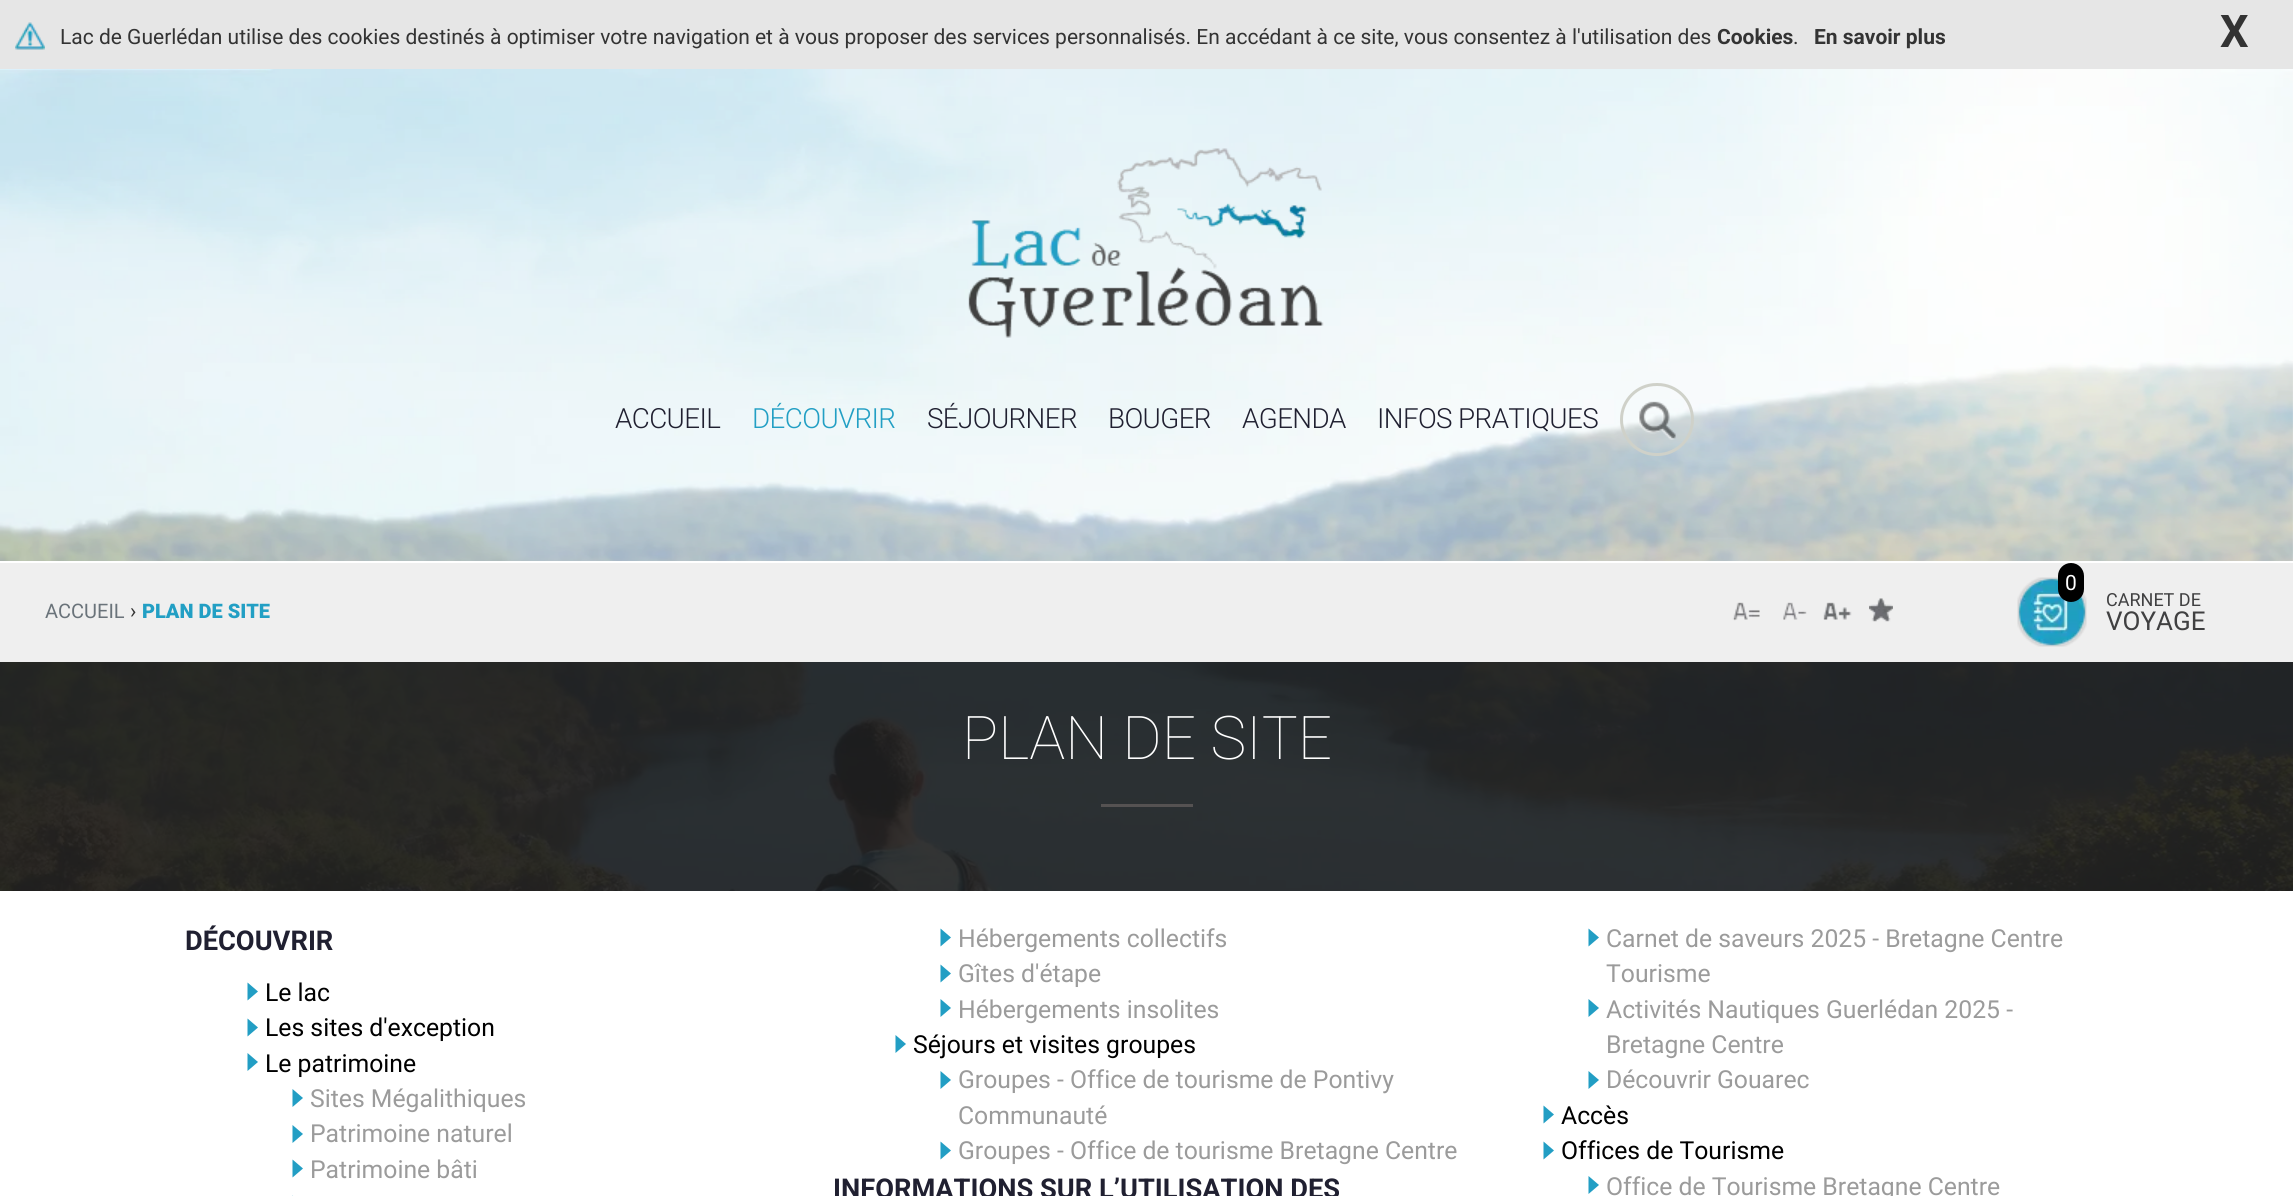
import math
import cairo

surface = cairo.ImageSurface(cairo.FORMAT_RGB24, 2293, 1196)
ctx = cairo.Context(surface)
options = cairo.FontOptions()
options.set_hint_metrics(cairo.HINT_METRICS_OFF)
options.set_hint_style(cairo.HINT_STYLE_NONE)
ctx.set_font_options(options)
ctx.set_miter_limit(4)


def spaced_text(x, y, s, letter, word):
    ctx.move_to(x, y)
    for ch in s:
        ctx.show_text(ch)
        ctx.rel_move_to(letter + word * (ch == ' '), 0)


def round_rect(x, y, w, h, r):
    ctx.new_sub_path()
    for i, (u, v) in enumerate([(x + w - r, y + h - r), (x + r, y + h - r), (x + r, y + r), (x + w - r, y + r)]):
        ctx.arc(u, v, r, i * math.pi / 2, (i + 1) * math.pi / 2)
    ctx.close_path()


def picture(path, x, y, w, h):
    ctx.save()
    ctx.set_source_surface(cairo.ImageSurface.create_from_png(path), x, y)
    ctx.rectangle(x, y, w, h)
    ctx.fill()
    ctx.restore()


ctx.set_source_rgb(1, 1, 1)
ctx.paint()
ctx.set_source_rgb(0.902, 0.902, 0.902)
ctx.rectangle(0, 0, 2293, 69)
ctx.fill()
picture("img1.png", 15, 22, 30, 28)
ctx.select_font_face("Roboto")
ctx.set_font_size(21)
ctx.set_source_rgb(0.2, 0.2, 0.2)
ctx.move_to(60, 44)
ctx.show_text("Lac de Guerlédan utilise des cookies destinés à optimiser votre navigation et à vous proposer des services personnalisés. En accédant à ce site, vous consentez à l'utilisation des")
ctx.select_font_face("Roboto", cairo.FONT_SLANT_NORMAL, cairo.FONT_WEIGHT_BOLD)
ctx.move_to(1717, 44)
ctx.show_text("Cookies")
ctx.select_font_face("Roboto")
ctx.move_to(1793, 44)
ctx.show_text(".")
ctx.select_font_face("Roboto", cairo.FONT_SLANT_NORMAL, cairo.FONT_WEIGHT_BOLD)
ctx.move_to(1814, 44)
ctx.show_text("En savoir plus")
ctx.set_font_size(45)
ctx.move_to(2220, 47)
ctx.show_text("X")
picture("img2.png", 0, 69, 2293, 822)
picture("img3.png", 968, 148, 356, 190)
ctx.select_font_face("Roboto Light")
ctx.set_font_size(27.75)
ctx.set_source_rgb(0.125, 0.125, 0.192)
spaced_text(615, 428, "ACCUEIL", -0.6, 0)
ctx.set_source_rgb(0.133, 0.624, 0.769)
spaced_text(752, 428, "DÉCOUVRIR", -0.6, 0)
ctx.set_source_rgb(0.125, 0.125, 0.192)
spaced_text(927, 428, "SÉJOURNER", -0.6, 0)
spaced_text(1108, 428, "BOUGER", -0.6, 0)
spaced_text(1242, 428, "AGENDA", -0.6, 0)
spaced_text(1377, 428, "INFOS PRATIQUES", -0.6, 0)
round_rect(1621.5, 384.5, 71, 70, 35)
ctx.set_source_rgb(0.812, 0.82, 0.788)
ctx.set_line_width(3)
ctx.stroke()
picture("img4.png", 1638, 401, 38, 39)
ctx.set_source_rgb(0.937, 0.937, 0.937)
ctx.rectangle(0, 563, 2293, 99)
ctx.fill()
ctx.set_source_rgb(1, 1, 1)
ctx.rectangle(0, 561, 2293, 2)
ctx.fill()
ctx.select_font_face("Roboto")
ctx.set_font_size(20)
ctx.set_source_rgb(0.416, 0.451, 0.478)
ctx.move_to(45, 618)
ctx.show_text("ACCUEIL")
ctx.set_font_size(21)
ctx.set_source_rgb(0.2, 0.2, 0.2)
ctx.move_to(130, 618)
ctx.show_text("›")
ctx.select_font_face("Roboto Black")
ctx.set_font_size(20)
ctx.set_source_rgb(0.133, 0.624, 0.769)
ctx.move_to(142, 618)
ctx.show_text("PLAN DE SITE")
picture("img5.png", 1732, 602, 28, 19)
picture("img6.png", 1783, 602, 24, 18)
picture("img7.png", 1823, 602, 29, 18)
picture("img8.png", 1869, 598, 24, 24)
picture("img9.png", 2017, 577, 70, 70)
ctx.set_source_rgb(0, 0, 0)
round_rect(2058, 563, 26, 39, 13)
ctx.fill()
ctx.select_font_face("Roboto")
ctx.set_font_size(21)
ctx.set_source_rgb(1, 1, 1)
ctx.move_to(2065, 590)
ctx.show_text("0")
ctx.set_font_size(18)
ctx.set_source_rgb(0.251, 0.251, 0.255)
ctx.move_to(2106, 606)
ctx.show_text("CARNET DE")
ctx.set_font_size(26)
ctx.move_to(2106, 630)
ctx.show_text("VOYAGE")
ctx.set_source_rgba(0.008, 0.008, 0.008, 0.8)
ctx.rectangle(0, 662, 2293, 229)
ctx.fill()
ctx.select_font_face("Roboto Thin")
ctx.set_font_size(60.25)
ctx.set_source_rgb(1, 1, 1)
ctx.move_to(962, 759)
ctx.show_text("PLAN DE SITE")
ctx.set_source_rgb(0.333, 0.322, 0.322)
ctx.rectangle(1101, 804, 92, 3)
ctx.fill()
ctx.select_font_face("Roboto", cairo.FONT_SLANT_NORMAL, cairo.FONT_WEIGHT_BOLD)
ctx.set_font_size(27.25)
ctx.set_source_rgb(0.125, 0.125, 0.192)
ctx.move_to(185, 950)
ctx.show_text("DÉCOUVRIR")
ctx.set_source_rgb(0.133, 0.62, 0.769)
ctx.new_path()
ctx.move_to(247.5, 1000.5)
ctx.line_to(247.5, 982.5)
ctx.line_to(258, 991.5)
ctx.close_path()
ctx.fill()
ctx.select_font_face("Roboto")
ctx.set_font_size(24.75)
ctx.set_source_rgb(0, 0, 0)
ctx.move_to(265, 1001)
ctx.show_text("Le lac")
ctx.set_source_rgb(0.133, 0.62, 0.769)
ctx.new_path()
ctx.move_to(247.5, 1036.5)
ctx.line_to(247.5, 1018.5)
ctx.line_to(258, 1027.5)
ctx.close_path()
ctx.fill()
ctx.set_source_rgb(0, 0, 0)
ctx.move_to(265, 1036)
ctx.show_text("Les sites d'exception")
ctx.set_source_rgb(0.133, 0.62, 0.769)
ctx.new_path()
ctx.move_to(247.5, 1071)
ctx.line_to(247.5, 1053)
ctx.line_to(258, 1062)
ctx.close_path()
ctx.fill()
ctx.set_source_rgb(0, 0, 0)
ctx.move_to(265, 1072)
ctx.show_text("Le patrimoine")
ctx.set_source_rgb(0.133, 0.62, 0.769)
ctx.new_path()
ctx.move_to(292.5, 1107)
ctx.line_to(292.5, 1089)
ctx.line_to(303, 1098)
ctx.close_path()
ctx.fill()
ctx.set_source_rgb(0.608, 0.608, 0.608)
ctx.move_to(310, 1107)
ctx.show_text("Sites Mégalithiques")
ctx.set_source_rgb(0.133, 0.62, 0.769)
ctx.new_path()
ctx.move_to(292.5, 1143)
ctx.line_to(292.5, 1125)
ctx.line_to(303, 1134)
ctx.close_path()
ctx.fill()
ctx.set_source_rgb(0.608, 0.608, 0.608)
ctx.move_to(310, 1142)
ctx.show_text("Patrimoine naturel")
ctx.set_source_rgb(0.133, 0.62, 0.769)
ctx.new_path()
ctx.move_to(292.5, 1177.5)
ctx.line_to(292.5, 1159.5)
ctx.line_to(303, 1168.5)
ctx.close_path()
ctx.move_to(292.5, 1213.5)
ctx.line_to(292.5, 1195.5)
ctx.line_to(303, 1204.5)
ctx.close_path()
ctx.fill()
ctx.set_source_rgb(0.608, 0.608, 0.608)
ctx.move_to(310, 1178)
ctx.show_text("Patrimoine bâti")
ctx.set_source_rgb(0.133, 0.62, 0.769)
ctx.new_path()
ctx.move_to(940.5, 946.5)
ctx.line_to(940.5, 928.5)
ctx.line_to(951, 937.5)
ctx.close_path()
ctx.fill()
ctx.set_source_rgb(0.608, 0.608, 0.608)
ctx.move_to(958, 947)
ctx.show_text("Hébergements collectifs")
ctx.set_source_rgb(0.133, 0.62, 0.769)
ctx.new_path()
ctx.move_to(940.5, 982.5)
ctx.line_to(940.5, 964.5)
ctx.line_to(951, 973.5)
ctx.close_path()
ctx.fill()
ctx.set_source_rgb(0.608, 0.608, 0.608)
ctx.move_to(958, 982)
ctx.show_text("Gîtes d'étape")
ctx.set_source_rgb(0.133, 0.62, 0.769)
ctx.new_path()
ctx.move_to(940.5, 1017)
ctx.line_to(940.5, 999)
ctx.line_to(951, 1008)
ctx.close_path()
ctx.fill()
ctx.set_source_rgb(0.608, 0.608, 0.608)
ctx.move_to(958, 1018)
ctx.show_text("Hébergements insolites")
ctx.set_source_rgb(0.133, 0.62, 0.769)
ctx.new_path()
ctx.move_to(895.5, 1053)
ctx.line_to(895.5, 1035)
ctx.line_to(906, 1044)
ctx.close_path()
ctx.fill()
ctx.set_source_rgb(0, 0, 0)
ctx.move_to(913, 1053)
ctx.show_text("Séjours et visites groupes")
ctx.set_source_rgb(0.133, 0.62, 0.769)
ctx.new_path()
ctx.move_to(940.5, 1089)
ctx.line_to(940.5, 1071)
ctx.line_to(951, 1080)
ctx.close_path()
ctx.fill()
ctx.set_source_rgb(0.608, 0.608, 0.608)
ctx.move_to(958, 1088)
ctx.show_text("Groupes - Office de tourisme de Pontivy")
ctx.move_to(958, 1124)
ctx.show_text("Communauté")
ctx.set_source_rgb(0.133, 0.62, 0.769)
ctx.new_path()
ctx.move_to(940.5, 1159.5)
ctx.line_to(940.5, 1141.5)
ctx.line_to(951, 1150.5)
ctx.close_path()
ctx.fill()
ctx.set_source_rgb(0.608, 0.608, 0.608)
ctx.move_to(958, 1159)
ctx.show_text("Groupes - Office de tourisme Bretagne Centre")
ctx.set_source_rgb(0.133, 0.62, 0.769)
ctx.new_path()
ctx.move_to(1588.5, 946.5)
ctx.line_to(1588.5, 928.5)
ctx.line_to(1599, 937.5)
ctx.close_path()
ctx.fill()
ctx.set_source_rgb(0.608, 0.608, 0.608)
ctx.move_to(1606, 947)
ctx.show_text("Carnet de saveurs 2025 - Bretagne Centre")
ctx.move_to(1606, 982)
ctx.show_text("Tourisme")
ctx.set_source_rgb(0.133, 0.62, 0.769)
ctx.new_path()
ctx.move_to(1588.5, 1017)
ctx.line_to(1588.5, 999)
ctx.line_to(1599, 1008)
ctx.close_path()
ctx.fill()
ctx.set_source_rgb(0.608, 0.608, 0.608)
ctx.move_to(1606, 1018)
ctx.show_text("Activités Nautiques Guerlédan 2025 -")
ctx.move_to(1606, 1053)
ctx.show_text("Bretagne Centre")
ctx.set_source_rgb(0.133, 0.62, 0.769)
ctx.new_path()
ctx.move_to(1588.5, 1089)
ctx.line_to(1588.5, 1071)
ctx.line_to(1599, 1080)
ctx.close_path()
ctx.fill()
ctx.set_source_rgb(0.608, 0.608, 0.608)
ctx.move_to(1606, 1088)
ctx.show_text("Découvrir Gouarec")
ctx.set_source_rgb(0.133, 0.62, 0.769)
ctx.new_path()
ctx.move_to(1543.5, 1123.5)
ctx.line_to(1543.5, 1105.5)
ctx.line_to(1554, 1114.5)
ctx.close_path()
ctx.fill()
ctx.set_source_rgb(0, 0, 0)
ctx.move_to(1561, 1124)
ctx.show_text("Accès")
ctx.set_source_rgb(0.133, 0.62, 0.769)
ctx.new_path()
ctx.move_to(1543.5, 1159.5)
ctx.line_to(1543.5, 1141.5)
ctx.line_to(1554, 1150.5)
ctx.close_path()
ctx.fill()
ctx.set_source_rgb(0, 0, 0)
ctx.move_to(1561, 1159)
ctx.show_text("Offices de Tourisme")
ctx.set_source_rgb(0.133, 0.62, 0.769)
ctx.new_path()
ctx.move_to(1588.5, 1194)
ctx.line_to(1588.5, 1176)
ctx.line_to(1599, 1185)
ctx.close_path()
ctx.fill()
ctx.set_source_rgb(0.608, 0.608, 0.608)
ctx.move_to(1606, 1195)
ctx.show_text("Office de Tourisme Bretagne Centre")
ctx.select_font_face("Roboto", cairo.FONT_SLANT_NORMAL, cairo.FONT_WEIGHT_BOLD)
ctx.set_font_size(27.25)
ctx.set_source_rgb(0.125, 0.125, 0.192)
ctx.move_to(833, 1198)
ctx.show_text("INFORMATIONS SUR L’UTILISATION DES")
surface.write_to_png("page.png")
